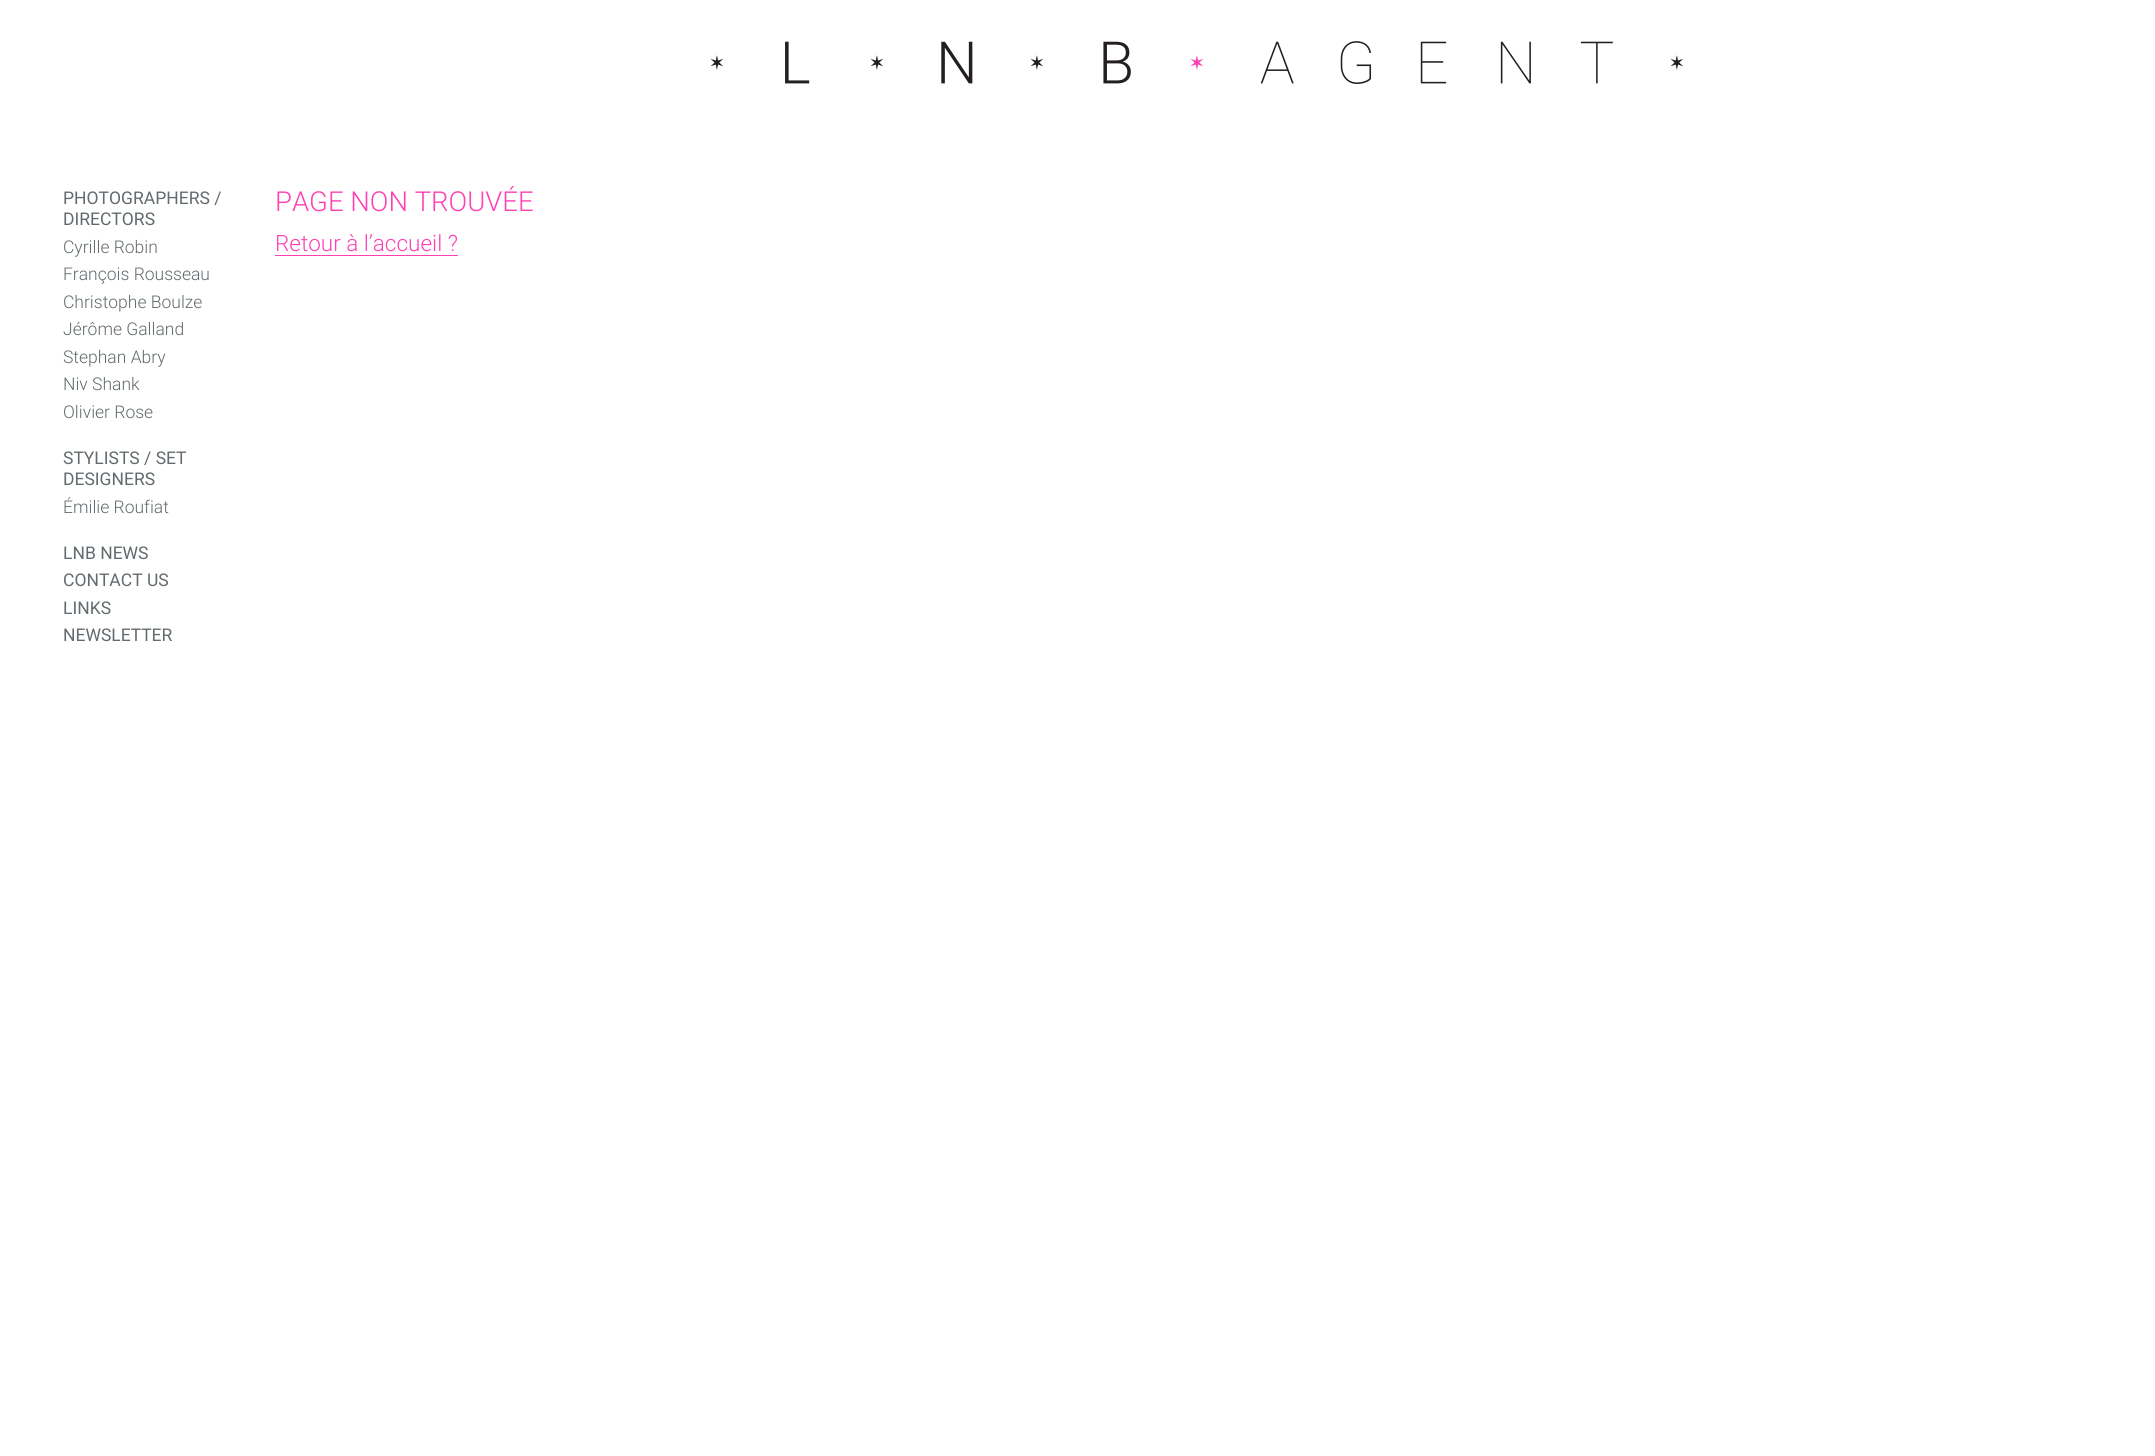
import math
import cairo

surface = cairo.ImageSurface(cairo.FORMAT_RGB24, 2155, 1456)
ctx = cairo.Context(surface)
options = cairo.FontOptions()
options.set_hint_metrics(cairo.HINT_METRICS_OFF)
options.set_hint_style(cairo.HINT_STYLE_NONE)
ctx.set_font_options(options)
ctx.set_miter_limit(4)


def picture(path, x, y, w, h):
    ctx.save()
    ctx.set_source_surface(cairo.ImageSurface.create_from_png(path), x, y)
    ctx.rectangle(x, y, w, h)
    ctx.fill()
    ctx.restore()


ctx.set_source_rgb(1, 1, 1)
ctx.paint()
picture("img1.png", 710, 41, 973, 43)
ctx.select_font_face("Roboto")
ctx.set_font_size(17.5)
ctx.set_source_rgb(0.388, 0.42, 0.431)
ctx.move_to(63, 204)
ctx.show_text("PHOTOGRAPHERS /")
ctx.move_to(63, 225)
ctx.show_text("DIRECTORS")
ctx.select_font_face("Roboto Light")
ctx.move_to(63, 253)
ctx.show_text("Cyrille Robin")
ctx.move_to(63, 280)
ctx.show_text("François Rousseau")
ctx.move_to(63, 308)
ctx.show_text("Christophe Boulze")
ctx.move_to(63, 335)
ctx.show_text("Jérôme Galland")
ctx.move_to(63, 363)
ctx.show_text("Stephan Abry")
ctx.move_to(63, 390)
ctx.show_text("Niv Shank")
ctx.move_to(63, 418)
ctx.show_text("Olivier Rose")
ctx.select_font_face("Roboto")
ctx.move_to(63, 464)
ctx.show_text("STYLISTS / SET")
ctx.move_to(63, 485)
ctx.show_text("DESIGNERS")
ctx.select_font_face("Roboto Light")
ctx.move_to(63, 513)
ctx.show_text("Émilie Roufiat")
ctx.select_font_face("Roboto")
ctx.move_to(63, 559)
ctx.show_text("LNB NEWS")
ctx.move_to(63, 586)
ctx.show_text("CONTACT US")
ctx.move_to(63, 614)
ctx.show_text("LINKS")
ctx.move_to(63, 641)
ctx.show_text("NEWSLETTER")
ctx.select_font_face("Roboto Light")
ctx.set_font_size(27.5)
ctx.set_source_rgb(1, 0.255, 0.706)
ctx.move_to(275, 211)
ctx.show_text("PAGE NON TROUVÉE")
ctx.set_font_size(22.5)
ctx.move_to(275, 251)
ctx.show_text("Retour à l’accueil ?")
ctx.rectangle(275, 255, 183, 1)
ctx.fill()
surface.write_to_png("page.png")
